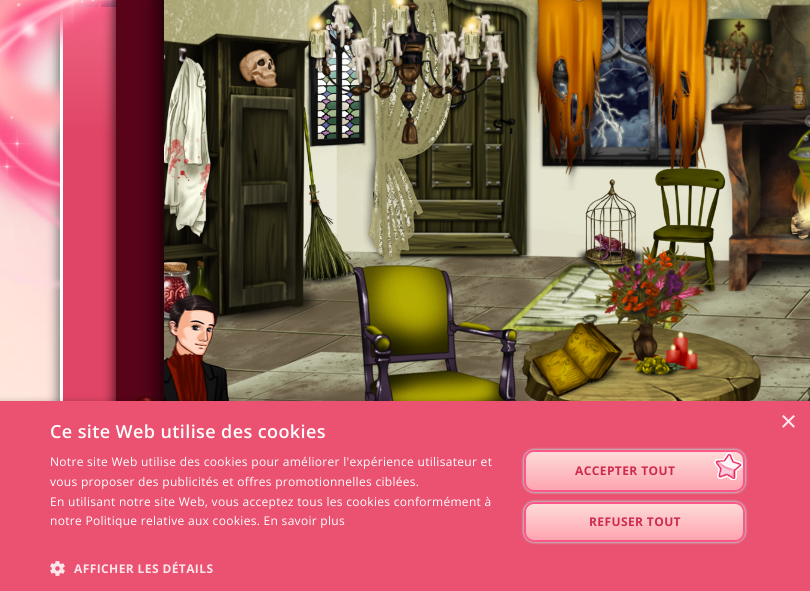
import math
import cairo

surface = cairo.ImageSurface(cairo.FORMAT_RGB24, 810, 591)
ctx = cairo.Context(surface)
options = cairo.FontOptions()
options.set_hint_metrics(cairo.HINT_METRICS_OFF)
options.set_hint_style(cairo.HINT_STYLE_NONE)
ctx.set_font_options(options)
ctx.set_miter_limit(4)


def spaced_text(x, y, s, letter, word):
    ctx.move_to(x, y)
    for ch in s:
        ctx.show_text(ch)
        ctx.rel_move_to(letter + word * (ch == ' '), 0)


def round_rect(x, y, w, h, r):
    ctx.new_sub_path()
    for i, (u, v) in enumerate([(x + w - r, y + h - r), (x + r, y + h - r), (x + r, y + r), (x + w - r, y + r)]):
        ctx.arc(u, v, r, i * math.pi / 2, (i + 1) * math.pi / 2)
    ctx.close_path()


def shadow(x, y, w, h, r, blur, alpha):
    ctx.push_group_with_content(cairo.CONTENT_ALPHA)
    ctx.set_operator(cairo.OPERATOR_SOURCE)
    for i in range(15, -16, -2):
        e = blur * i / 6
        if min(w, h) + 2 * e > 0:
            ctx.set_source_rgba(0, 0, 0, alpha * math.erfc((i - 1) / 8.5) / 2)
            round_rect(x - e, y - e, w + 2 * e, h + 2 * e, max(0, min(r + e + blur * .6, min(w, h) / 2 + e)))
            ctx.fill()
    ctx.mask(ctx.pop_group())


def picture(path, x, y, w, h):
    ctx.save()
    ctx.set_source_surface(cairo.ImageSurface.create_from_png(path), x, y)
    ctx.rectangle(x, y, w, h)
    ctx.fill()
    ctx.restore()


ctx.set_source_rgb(1, 1, 1)
ctx.paint()
picture("img1.png", 0, 7, 60, 394)
ctx.set_source_rgb(0.502, 0.502, 0.502)
shadow(57, -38, 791, 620, 23, 5, 1)
gradient = cairo.LinearGradient(63, 576, 63, -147)
gradient.add_color_stop_rgba(0.61, 0.878, 0.267, 0.4, 1)
gradient.add_color_stop_rgba(1, 1, 0.549, 0.647, 1)
ctx.set_source(gradient)
ctx.rectangle(63, 0, 53, 401)
ctx.fill()
ctx.rectangle(61.5, -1.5, 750, 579)
ctx.set_source_rgb(1, 1, 1)
ctx.set_line_width(3)
ctx.stroke()
picture("img2.png", 0, 0, 116, 7)
picture("img3.png", 0, 0, 116, 290)
ctx.set_source_rgb(0, 0, 0)
shadow(113, -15, 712, 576, 0, 5, 0.6)
ctx.set_source_rgb(0.349, 0.012, 0.098)
ctx.rectangle(116, 0, 48, 401)
ctx.fill()
ctx.set_source_rgb(0, 0, 0)
shadow(162, -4, 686, 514, 0, 12.5, 1)
picture("img7.png", 337, 0, 473, 263)
picture("img31.png", 164, 251, 646, 136)
picture("img4.png", 164, 0, 173, 318)
picture("img5.png", 306, 0, 62, 148)
picture("img9.png", 373, 0, 159, 261)
picture("img8.png", 363, 0, 94, 262)
picture("img35.png", 500, 263, 183, 72)
picture("img43.png", 226, 351, 584, 50)
picture("img34.png", 352, 265, 165, 136)
picture("img24.png", 302, 107, 55, 179)
picture("img19.png", 164, 33, 158, 295)
picture("img6.png", 311, 0, 198, 145)
picture("img10.png", 386, 0, 27, 38)
picture("img17.png", 558, 17, 123, 133)
picture("img12.png", 539, 0, 160, 170)
picture("img11.png", 530, 0, 75, 191)
picture("img13.png", 644, 0, 66, 185)
picture("img18.png", 710, 0, 100, 304)
picture("img14.png", 702, 0, 72, 115)
picture("img15.png", 304, 12, 27, 51)
picture("img16.png", 458, 12, 27, 51)
picture("img20.png", 164, 57, 49, 180)
picture("img21.png", 239, 49, 39, 41)
picture("img22.png", 790, 76, 17, 35)
picture("img23.png", 809, 105, 1, 3)
picture("img26.png", 782, 129, 28, 84)
picture("img25.png", 792, 114, 18, 52)
picture("img28.png", 641, 167, 85, 129)
picture("img27.png", 576, 179, 71, 92)
picture("img29.png", 787, 166, 23, 75)
picture("img41.png", 521, 322, 241, 79)
picture("img30.png", 594, 244, 124, 119)
picture("img33.png", 189, 260, 24, 44)
picture("img32.png", 164, 262, 28, 61)
picture("img37.png", 166, 337, 61, 60)
picture("img38.png", 164, 344, 65, 57)
picture("img36.png", 167, 294, 53, 62)
picture("img39.png", 164, 357, 66, 44)
picture("img40.png", 530, 320, 93, 79)
picture("img42.png", 634, 331, 71, 47)
picture("img44.png", 807, 386, 3, 15)
picture("img45.png", 133, 396, 21, 5)
shadow(1, 403, 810, 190, 0, 4, 0.35)
ctx.set_source_rgb(0.918, 0.318, 0.439)
ctx.rectangle(0, 401, 810, 190)
ctx.fill()
ctx.select_font_face("Liberation Sans")
ctx.set_font_size(29)
ctx.set_source_rgb(0.988, 0.898, 0.918)
ctx.move_to(780, 431)
ctx.show_text("×")
ctx.select_font_face("Open Sans SemiBold")
ctx.set_font_size(18)
ctx.set_source_rgb(1, 1, 1)
spaced_text(50, 438, "Ce site Web utilise des cookies", 0.4, 0)
ctx.select_font_face("Open Sans")
ctx.set_font_size(12)
spaced_text(50, 466, "Notre site Web utilise des cookies pour améliorer l'expérience utilisateur et", 0.3, 0)
spaced_text(50, 486, "vous proposer des publicités et offres promotionnelles ciblées.", 0.3, 0)
spaced_text(50, 506, "En utilisant notre site Web, vous acceptez tous les cookies conformément à", 0.3, 0)
spaced_text(50, 525, "notre Politique relative aux cookies. En savoir plus", 0.3, 0)
picture("img46.png", 50, 561, 15, 15)
ctx.select_font_face("Open Sans", cairo.FONT_SLANT_NORMAL, cairo.FONT_WEIGHT_BOLD)
ctx.set_source_rgb(0.988, 0.898, 0.918)
spaced_text(74, 573, "AFFICHER LES DÉTAILS", 0.4, 0)
ctx.set_source_rgb(0.749, 0.749, 0.749)
shadow(523, 449, 223, 44, 11, 1, 1)
picture("img47.png", 526, 452, 217, 38)
round_rect(525, 451, 219, 40, 9)
ctx.set_source_rgb(0.988, 0.341, 0.533)
ctx.set_line_width(2)
ctx.stroke()
ctx.set_source_rgb(0.804, 0.169, 0.306)
spaced_text(575, 475, "ACCEPTER TOUT", 0.4, 0)
ctx.set_source_rgb(0.749, 0.749, 0.749)
shadow(523, 501, 223, 42, 11, 1, 1)
ctx.save()
round_rect(524, 502, 221, 40, 10)
ctx.clip()
gradient = cairo.LinearGradient(635, 504, 635, 540)
gradient.add_color_stop_rgba(0, 0.992, 0.859, 0.847, 1)
gradient.add_color_stop_rgba(1, 0.996, 0.643, 0.69, 1)
ctx.set_source(gradient)
ctx.rectangle(524, 504, 221, 36)
ctx.fill()
ctx.restore()
round_rect(525, 503, 219, 38, 9)
ctx.set_source_rgb(0.988, 0.341, 0.533)
ctx.stroke()
ctx.set_source_rgb(0.804, 0.169, 0.306)
spaced_text(589, 526, "REFUSER TOUT", 0.4, 0)
surface.write_to_png("page.png")
